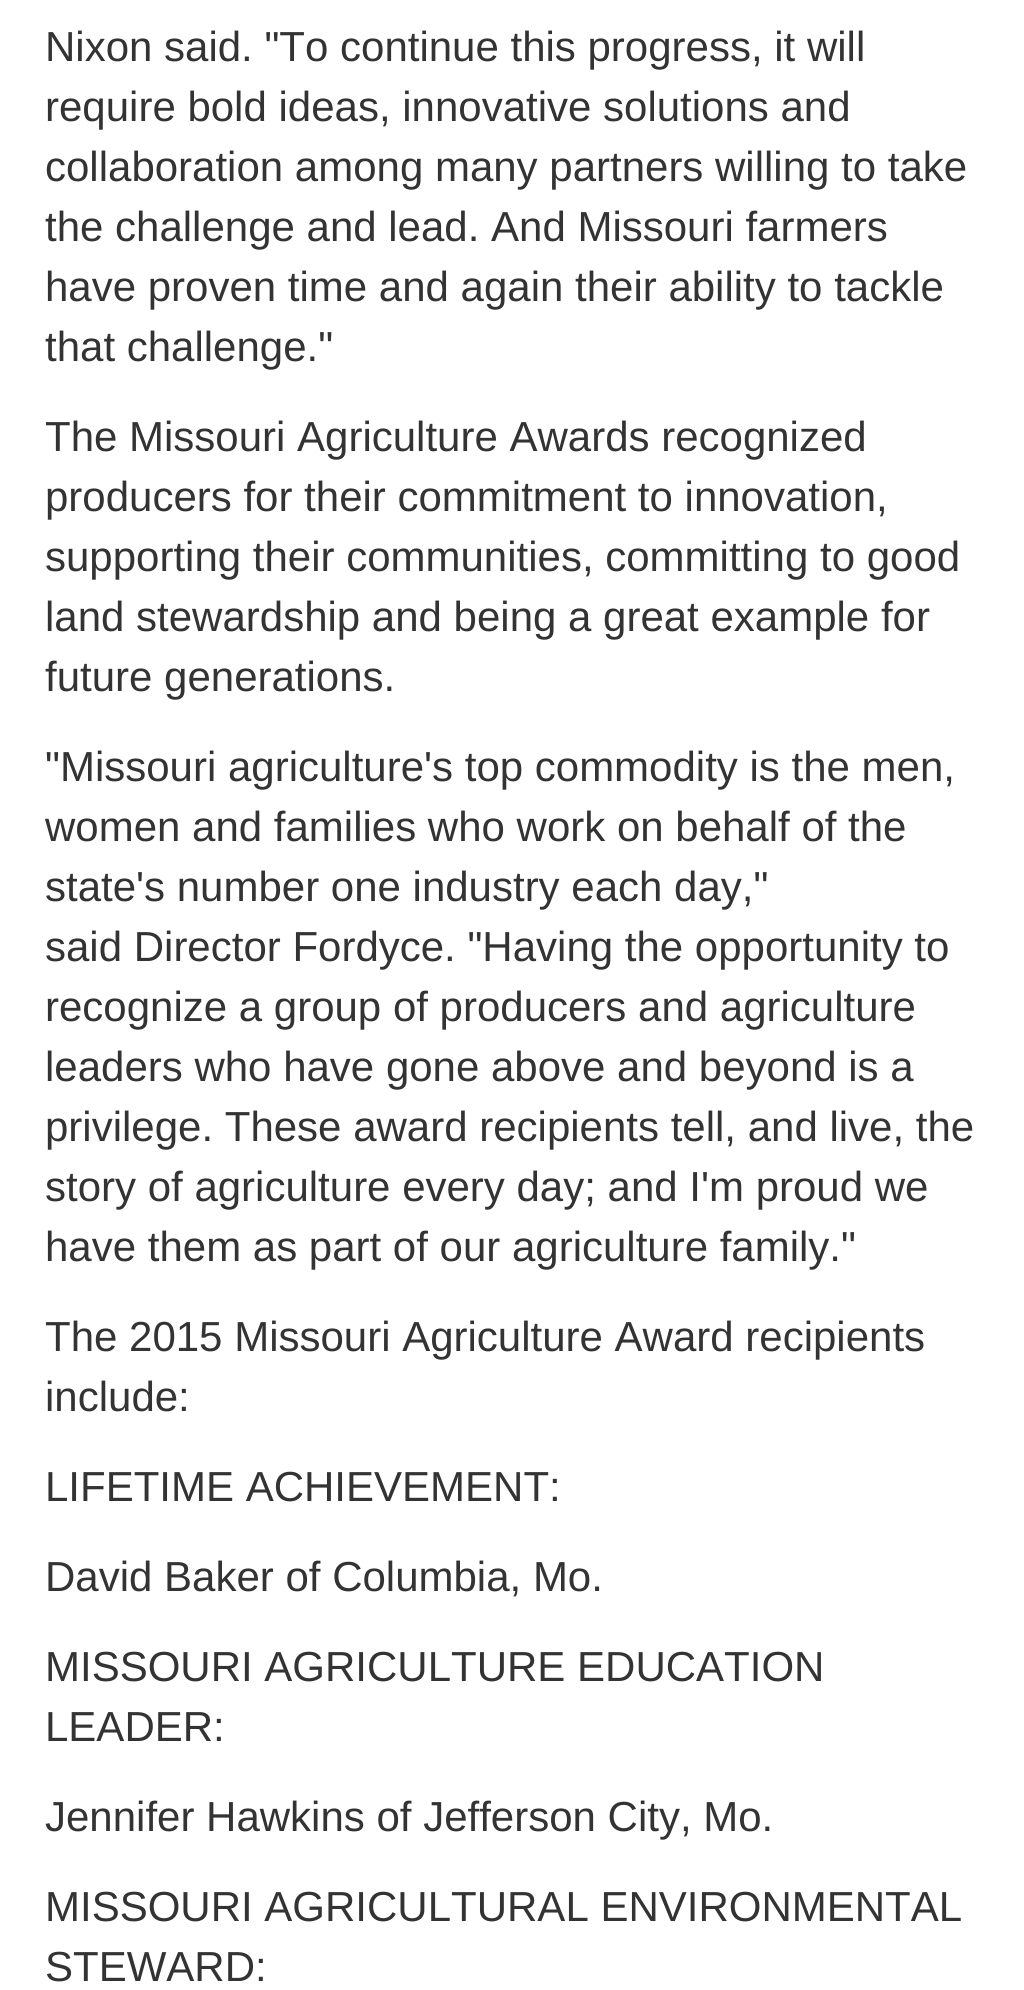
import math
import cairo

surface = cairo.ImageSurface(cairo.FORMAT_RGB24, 1024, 1990)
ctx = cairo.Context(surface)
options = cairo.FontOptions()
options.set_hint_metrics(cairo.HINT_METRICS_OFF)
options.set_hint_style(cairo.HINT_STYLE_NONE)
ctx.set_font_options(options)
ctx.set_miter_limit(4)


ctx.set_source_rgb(1, 1, 1)
ctx.paint()
ctx.select_font_face("Liberation Sans")
ctx.set_font_size(42)
ctx.set_source_rgb(0.2, 0.2, 0.2)
ctx.move_to(45, 61)
ctx.show_text("Nixon said. \"To continue this progress, it will")
ctx.move_to(45, 121)
ctx.show_text("require bold ideas, innovative solutions and")
ctx.move_to(45, 181)
ctx.show_text("collaboration among many partners willing to take")
ctx.move_to(45, 241)
ctx.show_text("the challenge and lead. And Missouri farmers")
ctx.move_to(45, 301)
ctx.show_text("have proven time and again their ability to tackle")
ctx.move_to(45, 361)
ctx.show_text("that challenge.\"")
ctx.move_to(45, 451)
ctx.show_text("The Missouri Agriculture Awards recognized")
ctx.move_to(45, 511)
ctx.show_text("producers for their commitment to innovation,")
ctx.move_to(45, 571)
ctx.show_text("supporting their communities, committing to good")
ctx.move_to(45, 631)
ctx.show_text("land stewardship and being a great example for")
ctx.move_to(45, 691)
ctx.show_text("future generations.")
ctx.move_to(45, 781)
ctx.show_text("\"Missouri agriculture's top commodity is the men,")
ctx.move_to(45, 841)
ctx.show_text("women and families who work on behalf of the")
ctx.move_to(45, 901)
ctx.show_text("state's number one industry each day,\"")
ctx.move_to(45, 961)
ctx.show_text("said Director Fordyce. \"Having the opportunity to")
ctx.move_to(45, 1021)
ctx.show_text("recognize a group of producers and agriculture")
ctx.move_to(45, 1081)
ctx.show_text("leaders who have gone above and beyond is a")
ctx.move_to(45, 1141)
ctx.show_text("privilege. These award recipients tell, and live, the")
ctx.move_to(45, 1201)
ctx.show_text("story of agriculture every day; and I'm proud we")
ctx.move_to(45, 1261)
ctx.show_text("have them as part of our agriculture family.\"")
ctx.move_to(45, 1351)
ctx.show_text("The 2015 Missouri Agriculture Award recipients")
ctx.move_to(45, 1411)
ctx.show_text("include:")
ctx.move_to(45, 1501)
ctx.show_text("LIFETIME ACHIEVEMENT:")
ctx.move_to(45, 1591)
ctx.show_text("David Baker of Columbia, Mo.")
ctx.move_to(45, 1681)
ctx.show_text("MISSOURI AGRICULTURE EDUCATION")
ctx.move_to(45, 1741)
ctx.show_text("LEADER:")
ctx.move_to(45, 1831)
ctx.show_text("Jennifer Hawkins of Jefferson City, Mo.")
ctx.move_to(45, 1921)
ctx.show_text("MISSOURI AGRICULTURAL ENVIRONMENTAL")
ctx.move_to(45, 1981)
ctx.show_text("STEWARD:")
surface.write_to_png("page.png")
